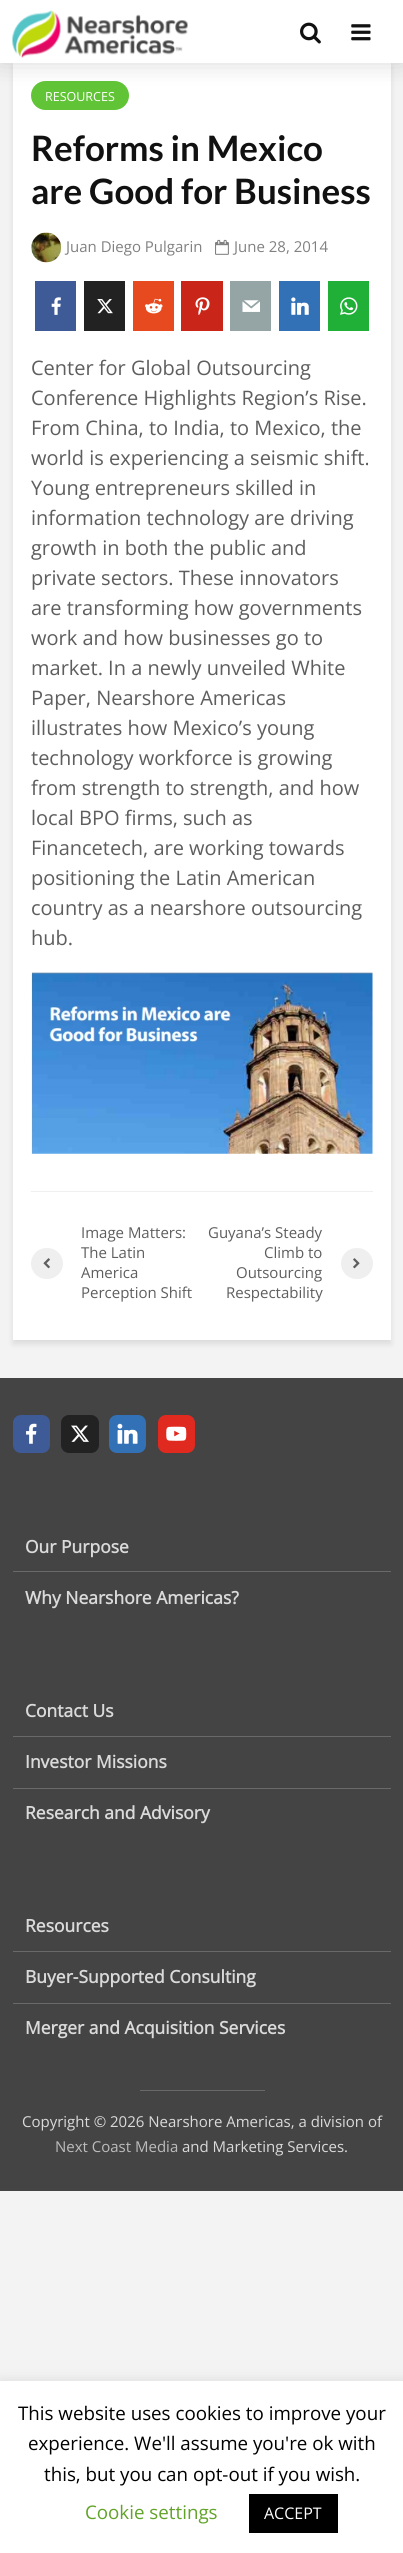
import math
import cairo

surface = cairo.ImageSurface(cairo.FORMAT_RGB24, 403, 2553)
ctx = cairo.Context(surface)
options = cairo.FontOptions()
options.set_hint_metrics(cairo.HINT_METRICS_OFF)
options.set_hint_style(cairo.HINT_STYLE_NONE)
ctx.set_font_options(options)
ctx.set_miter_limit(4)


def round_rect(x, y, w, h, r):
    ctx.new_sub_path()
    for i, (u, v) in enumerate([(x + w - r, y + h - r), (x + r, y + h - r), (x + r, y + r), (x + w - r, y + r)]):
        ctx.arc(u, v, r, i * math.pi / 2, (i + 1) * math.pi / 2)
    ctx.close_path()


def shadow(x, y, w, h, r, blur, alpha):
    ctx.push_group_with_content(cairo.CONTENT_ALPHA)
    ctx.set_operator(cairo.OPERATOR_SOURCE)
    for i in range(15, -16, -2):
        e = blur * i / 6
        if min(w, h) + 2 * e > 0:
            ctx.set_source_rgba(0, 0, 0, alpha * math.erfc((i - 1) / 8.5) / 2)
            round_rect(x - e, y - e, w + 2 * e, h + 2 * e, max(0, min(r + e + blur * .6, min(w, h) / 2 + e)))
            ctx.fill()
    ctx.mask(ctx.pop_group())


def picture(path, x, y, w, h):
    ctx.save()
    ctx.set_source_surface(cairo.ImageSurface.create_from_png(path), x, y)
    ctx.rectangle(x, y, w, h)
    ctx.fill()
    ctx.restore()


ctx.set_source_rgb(0.953, 0.953, 0.953)
ctx.paint()
ctx.set_source_rgb(0, 0.004, 0.004)
shadow(13, 66, 378, 1278, 0, 3, 0.1)
ctx.set_source_rgb(1, 1, 1)
ctx.rectangle(13, 63, 378, 1277)
ctx.fill()
ctx.set_source_rgb(0.38, 0.769, 0.212)
round_rect(31, 81, 98, 29, 14.5)
ctx.fill()
ctx.set_source_rgb(0, 0, 0)
shadow(0, 0, 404, 63, 0, 12.5, 0.15)
ctx.set_source_rgb(1, 1, 1)
ctx.rectangle(0, 0, 403, 63)
ctx.fill()
picture("img1.png", 12, 10, 176, 48)
picture("img2.png", 300, 22, 21, 22)
picture("img3.png", 351, 24, 20, 17)
ctx.select_font_face("Open Sans")
ctx.set_font_size(12.5)
ctx.move_to(45, 101)
ctx.show_text("RESOURCES")
ctx.select_font_face("Lato", cairo.FONT_SLANT_NORMAL, cairo.FONT_WEIGHT_BOLD)
ctx.set_font_size(35)
ctx.set_source_rgb(0.067, 0.067, 0.067)
ctx.move_to(31, 161)
ctx.show_text("Reforms in Mexico")
ctx.move_to(31, 204)
ctx.show_text("are Good for Business")
picture("img4.png", 31, 232, 31, 31)
ctx.select_font_face("Open Sans")
ctx.set_font_size(15)
ctx.set_source_rgb(0.506, 0.506, 0.506)
ctx.move_to(66, 252)
ctx.show_text("Juan Diego Pulgarin")
picture("img5.png", 215, 239, 14, 16)
ctx.move_to(234, 252)
ctx.show_text("June 28, 2014")
ctx.set_source_rgb(0.243, 0.357, 0.596)
ctx.rectangle(35, 281, 41, 50)
ctx.fill()
picture("img6.png", 51, 297, 10, 18)
ctx.set_source_rgb(0.133, 0.133, 0.133)
ctx.rectangle(84, 281, 41, 50)
ctx.fill()
picture("img7.png", 97, 299, 16, 15)
ctx.set_source_rgb(0.906, 0.29, 0.118)
ctx.rectangle(133, 281, 41, 50)
ctx.fill()
picture("img8.png", 145, 298, 18, 16)
ctx.set_source_rgb(0.788, 0.149, 0.098)
ctx.rectangle(181, 281, 42, 50)
ctx.fill()
picture("img9.png", 195, 297, 15, 18)
ctx.set_source_rgb(0.584, 0.647, 0.651)
ctx.rectangle(230, 281, 41, 50)
ctx.fill()
picture("img10.png", 242, 300, 18, 12)
ctx.set_source_rgb(0.2, 0.443, 0.718)
ctx.rectangle(279, 281, 41, 50)
ctx.fill()
picture("img11.png", 291, 297, 18, 18)
ctx.set_source_rgb(0.125, 0.69, 0.22)
ctx.rectangle(328, 281, 41, 50)
ctx.fill()
picture("img12.png", 340, 297, 18, 18)
ctx.set_font_size(20)
ctx.set_source_rgb(0.369, 0.369, 0.369)
ctx.move_to(31, 375)
ctx.show_text("Center for Global Outsourcing")
ctx.move_to(31, 405)
ctx.show_text("Conference Highlights Region’s Rise.")
ctx.move_to(31, 435)
ctx.show_text("From China, to India, to Mexico, the")
ctx.move_to(31, 465)
ctx.show_text("world is experiencing a seismic shift.")
ctx.move_to(31, 495)
ctx.show_text("Young entrepreneurs skilled in")
ctx.move_to(31, 525)
ctx.show_text("information technology are driving")
ctx.move_to(31, 555)
ctx.show_text("growth in both the public and")
ctx.move_to(31, 585)
ctx.show_text("private sectors. These innovators")
ctx.move_to(31, 615)
ctx.show_text("are transforming how governments")
ctx.move_to(31, 645)
ctx.show_text("work and how businesses go to")
ctx.move_to(31, 675)
ctx.show_text("market. In a newly unveiled White")
ctx.move_to(31, 705)
ctx.show_text("Paper, Nearshore Americas")
ctx.move_to(31, 735)
ctx.show_text("illustrates how Mexico’s young")
ctx.move_to(31, 765)
ctx.show_text("technology workforce is growing")
ctx.move_to(31, 795)
ctx.show_text("from strength to strength, and how")
ctx.move_to(31, 825)
ctx.show_text("local BPO firms, such as")
ctx.move_to(31, 855)
ctx.show_text("Financetech, are working towards")
ctx.move_to(31, 885)
ctx.show_text("positioning the Latin American")
ctx.move_to(31, 915)
ctx.show_text("country as a nearshore outsourcing")
ctx.move_to(31, 945)
ctx.show_text("hub.")
picture("img13.png", 31, 972, 342, 182)
ctx.set_source_rgb(0.937, 0.937, 0.937)
ctx.rectangle(31, 1191, 342, 1)
ctx.fill()
round_rect(31, 1248, 32, 31, 15.5)
ctx.fill()
picture("img14.png", 43, 1258, 7, 11)
ctx.set_font_size(15)
ctx.set_source_rgb(0.369, 0.369, 0.369)
ctx.move_to(81, 1238)
ctx.show_text("Image Matters:")
ctx.move_to(81, 1258)
ctx.show_text("The Latin")
ctx.move_to(81, 1278)
ctx.show_text("America")
ctx.move_to(81, 1298)
ctx.show_text("Perception Shift")
ctx.move_to(208, 1238)
ctx.show_text("Guyana’s Steady")
ctx.move_to(264, 1258)
ctx.show_text("Climb to")
ctx.move_to(236, 1278)
ctx.show_text("Outsourcing")
ctx.move_to(226, 1298)
ctx.show_text("Respectability")
ctx.set_source_rgb(0.937, 0.937, 0.937)
round_rect(341, 1248, 32, 31, 15.5)
ctx.fill()
picture("img15.png", 353, 1258, 7, 11)
ctx.set_source_rgb(0.267, 0.267, 0.267)
ctx.rectangle(0, 1378, 403, 813)
ctx.fill()
ctx.set_source_rgb(0.243, 0.357, 0.596)
round_rect(13, 1415, 37, 38, 8)
ctx.fill()
picture("img16.png", 26, 1423, 11, 21)
ctx.set_source_rgb(0.133, 0.133, 0.133)
round_rect(61, 1415, 38, 38, 8)
ctx.fill()
picture("img17.png", 71, 1425, 18, 17)
ctx.set_source_rgb(0.2, 0.443, 0.718)
round_rect(109, 1415, 37, 38, 8)
ctx.fill()
picture("img18.png", 117, 1423, 21, 21)
ctx.set_source_rgb(0.878, 0.165, 0.125)
round_rect(158, 1415, 37, 38, 8)
ctx.fill()
picture("img19.png", 166, 1426, 21, 15)
ctx.set_source_rgb(0.412, 0.412, 0.412)
ctx.rectangle(13, 1571, 378, 1)
ctx.fill()
ctx.select_font_face("Open Sans", cairo.FONT_SLANT_NORMAL, cairo.FONT_WEIGHT_BOLD)
ctx.set_font_size(17.5)
ctx.set_source_rgb(0.855, 0.855, 0.855)
ctx.move_to(25, 1553)
ctx.show_text("Our Purpose")
ctx.move_to(25, 1604)
ctx.show_text("Why Nearshore Americas?")
ctx.set_source_rgb(0.412, 0.412, 0.412)
ctx.rectangle(13, 1736, 378, 1)
ctx.fill()
ctx.set_source_rgb(0.855, 0.855, 0.855)
ctx.move_to(25, 1717)
ctx.show_text("Contact Us")
ctx.set_source_rgb(0.412, 0.412, 0.412)
ctx.rectangle(13, 1788, 378, 1)
ctx.fill()
ctx.set_source_rgb(0.855, 0.855, 0.855)
ctx.move_to(25, 1768)
ctx.show_text("Investor Missions")
ctx.move_to(25, 1819)
ctx.show_text("Research and Advisory")
ctx.set_source_rgb(0.412, 0.412, 0.412)
ctx.rectangle(13, 1951, 378, 1)
ctx.fill()
ctx.set_source_rgb(0.855, 0.855, 0.855)
ctx.move_to(25, 1932)
ctx.show_text("Resources")
ctx.set_source_rgb(0.412, 0.412, 0.412)
ctx.rectangle(13, 2003, 378, 1)
ctx.fill()
ctx.set_source_rgb(0.855, 0.855, 0.855)
ctx.move_to(25, 1983)
ctx.show_text("Buyer-Supported Consulting")
ctx.move_to(25, 2034)
ctx.show_text("Merger and Acquisition Services")
ctx.set_source_rgb(0.412, 0.412, 0.412)
ctx.rectangle(140, 2090, 125, 1)
ctx.fill()
ctx.select_font_face("Open Sans")
ctx.set_font_size(15)
ctx.set_source_rgb(0.855, 0.855, 0.855)
ctx.move_to(22, 2127)
ctx.show_text("Copyright © 2026 Nearshore Americas, a division of")
ctx.set_source_rgb(0.737, 0.737, 0.737)
ctx.move_to(55, 2152)
ctx.show_text("Next Coast Media")
ctx.set_source_rgb(0.855, 0.855, 0.855)
ctx.move_to(182, 2152)
ctx.show_text("and Marketing Services.")
ctx.set_source_rgb(0.675, 0.671, 0.671)
shadow(0, 2380, 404, 173, 0, 6, 0.3)
ctx.set_source_rgb(1, 1, 1)
ctx.rectangle(0, 2381, 403, 172)
ctx.fill()
ctx.set_font_size(18.75)
ctx.set_source_rgb(0, 0, 0)
ctx.move_to(18, 2420)
ctx.show_text("This website uses cookies to improve your")
ctx.move_to(28, 2450)
ctx.show_text("experience. We'll assume you're ok with")
ctx.move_to(44, 2481)
ctx.show_text("this, but you can opt-out if you wish.")
ctx.set_source_rgb(0.384, 0.639, 0.161)
ctx.move_to(85, 2519)
ctx.show_text("Cookie settings")
ctx.set_source_rgb(0, 0, 0)
ctx.rectangle(249, 2494, 89, 39)
ctx.fill()
ctx.set_font_size(16)
ctx.set_source_rgb(1, 1, 1)
ctx.move_to(264, 2519)
ctx.show_text("ACCEPT")
surface.write_to_png("page.png")
